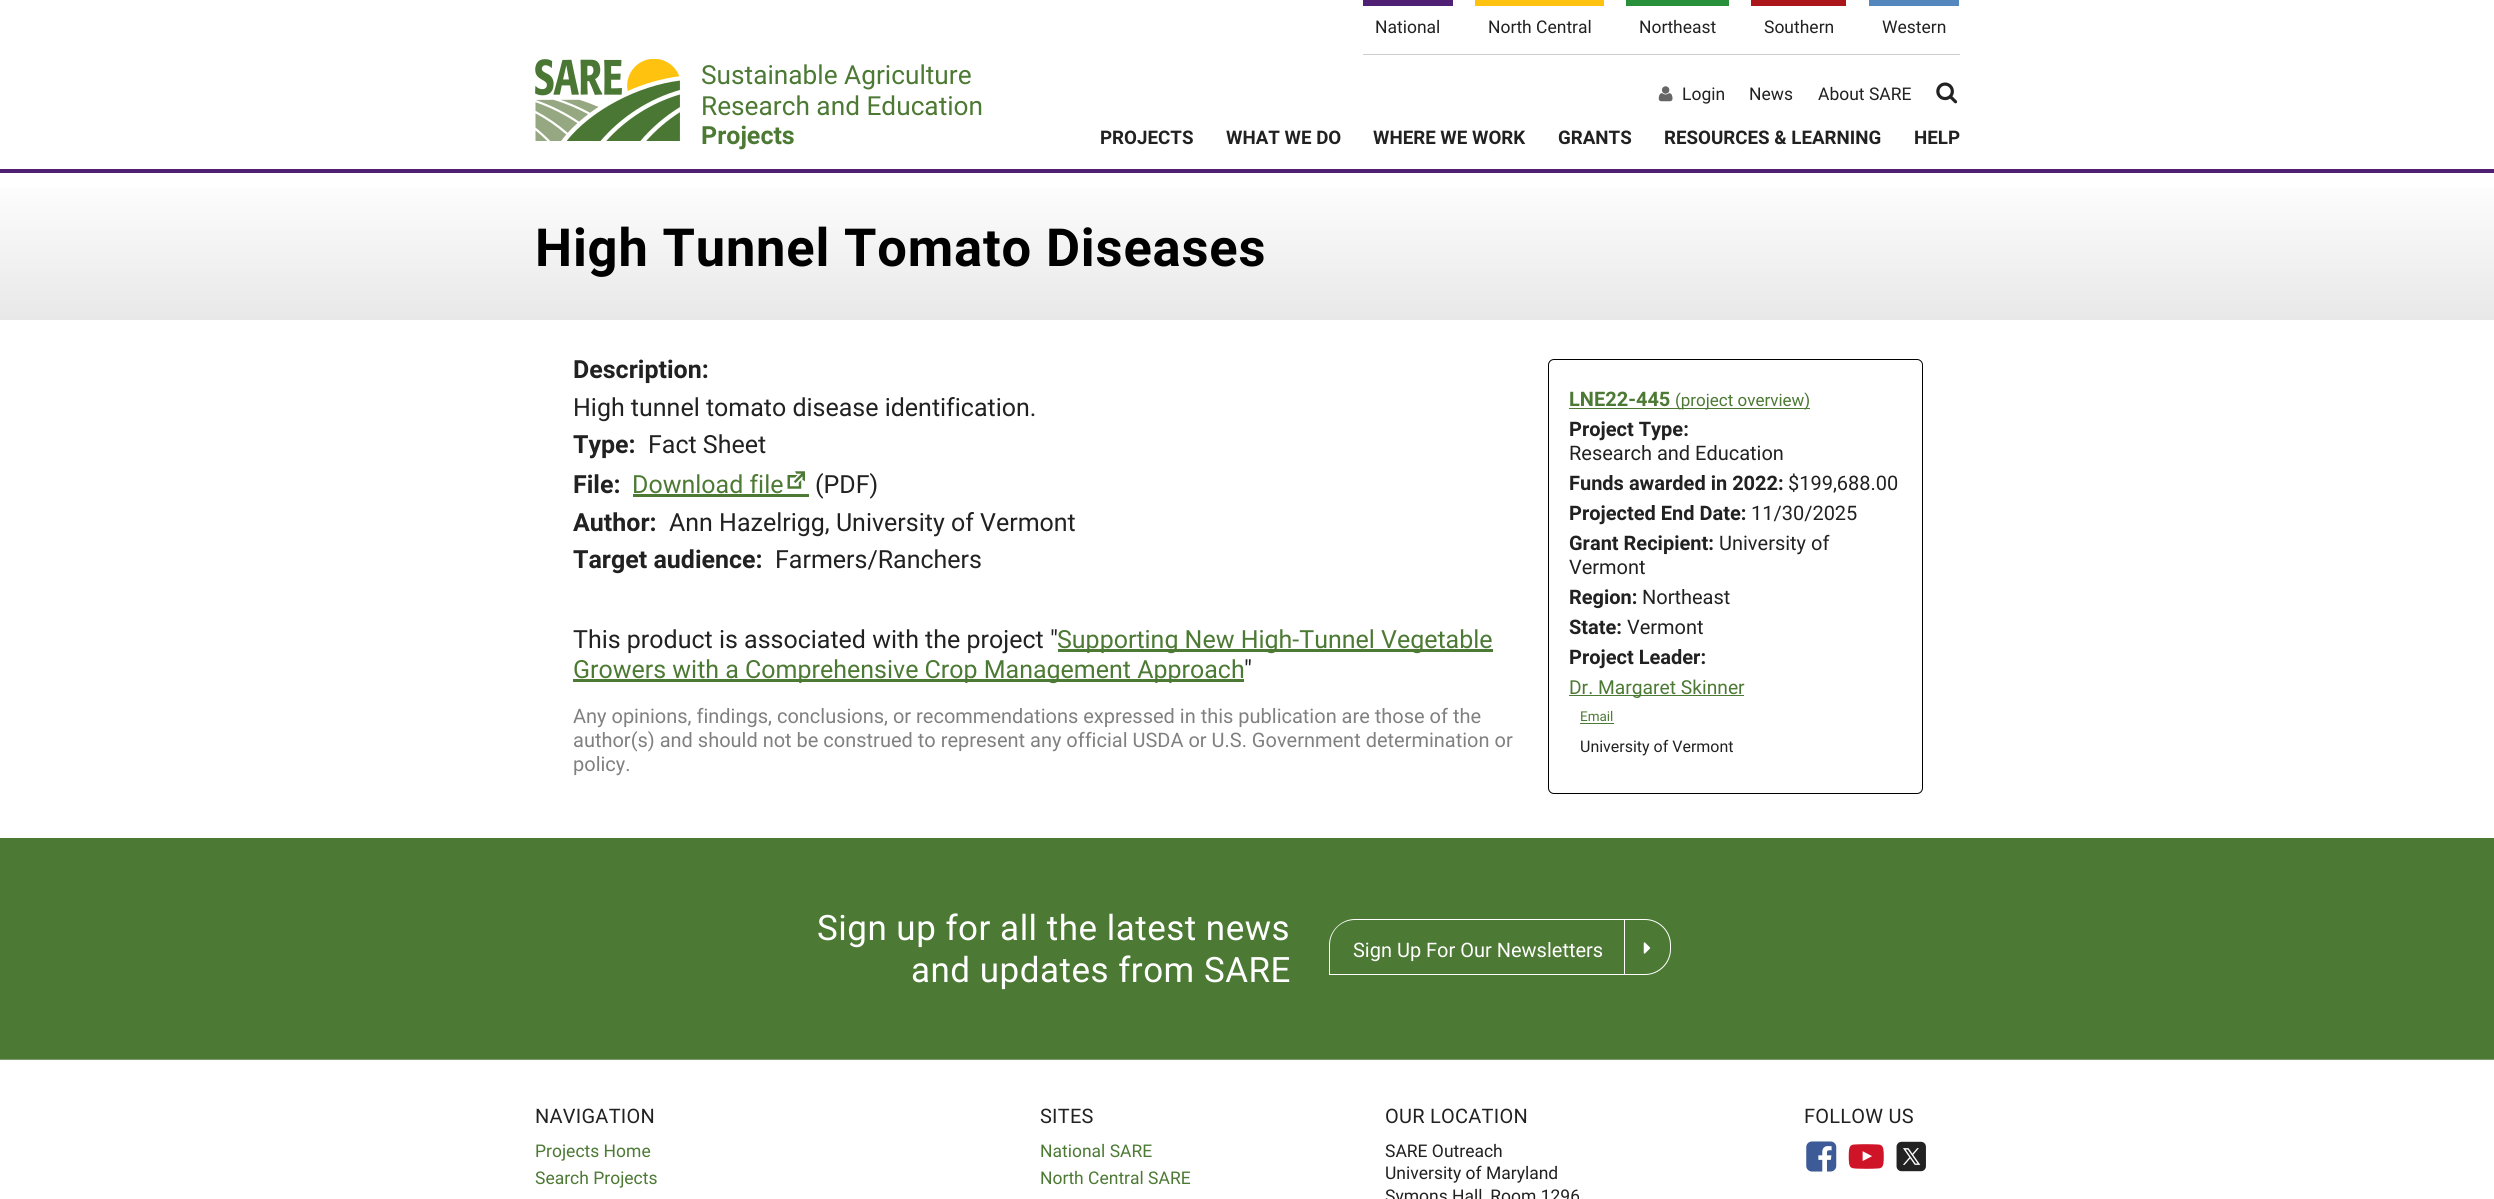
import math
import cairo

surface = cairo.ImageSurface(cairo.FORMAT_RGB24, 2494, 1199)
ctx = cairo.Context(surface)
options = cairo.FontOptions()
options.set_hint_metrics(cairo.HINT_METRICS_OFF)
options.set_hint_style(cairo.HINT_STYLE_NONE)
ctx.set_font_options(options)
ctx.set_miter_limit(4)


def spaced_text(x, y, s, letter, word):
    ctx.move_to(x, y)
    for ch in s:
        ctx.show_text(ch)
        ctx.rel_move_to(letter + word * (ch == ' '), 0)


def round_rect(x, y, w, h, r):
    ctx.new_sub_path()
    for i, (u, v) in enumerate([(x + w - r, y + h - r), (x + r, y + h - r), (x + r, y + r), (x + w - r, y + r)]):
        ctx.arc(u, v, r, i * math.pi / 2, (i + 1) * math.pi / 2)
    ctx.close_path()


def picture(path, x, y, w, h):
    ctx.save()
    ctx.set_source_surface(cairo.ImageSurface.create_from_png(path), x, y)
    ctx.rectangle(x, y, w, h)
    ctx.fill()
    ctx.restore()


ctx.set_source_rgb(1, 1, 1)
ctx.paint()
ctx.set_source_rgb(0.314, 0.125, 0.455)
ctx.rectangle(0, 169, 2494, 4)
ctx.fill()
ctx.set_source_rgb(0.8, 0.8, 0.8)
ctx.rectangle(1363, 54, 597, 1)
ctx.fill()
ctx.set_source_rgb(0.314, 0.125, 0.455)
ctx.rectangle(1363, 0, 90, 6)
ctx.fill()
ctx.select_font_face("Roboto")
ctx.set_font_size(17.5)
ctx.set_source_rgb(0.129, 0.129, 0.129)
ctx.move_to(1375, 33)
ctx.show_text("National")
ctx.set_source_rgb(1, 0.761, 0.055)
ctx.rectangle(1475, 0, 129, 6)
ctx.fill()
ctx.set_source_rgb(0.129, 0.129, 0.129)
ctx.move_to(1488, 33)
ctx.show_text("North Central")
ctx.set_source_rgb(0.157, 0.565, 0.227)
ctx.rectangle(1626, 0, 103, 6)
ctx.fill()
ctx.set_source_rgb(0.129, 0.129, 0.129)
ctx.move_to(1639, 33)
ctx.show_text("Northeast")
ctx.set_source_rgb(0.671, 0.086, 0.106)
ctx.rectangle(1751, 0, 95, 6)
ctx.fill()
ctx.set_source_rgb(0.129, 0.129, 0.129)
ctx.move_to(1764, 33)
ctx.show_text("Southern")
ctx.set_source_rgb(0.325, 0.529, 0.745)
ctx.rectangle(1869, 0, 90, 6)
ctx.fill()
ctx.set_source_rgb(0.129, 0.129, 0.129)
ctx.move_to(1882, 33)
ctx.show_text("Western")
picture("img1.png", 535, 59, 145, 82)
ctx.set_font_size(26.25)
ctx.set_source_rgb(0.298, 0.475, 0.204)
ctx.move_to(701, 84)
ctx.show_text("Sustainable Agriculture")
ctx.move_to(701, 115)
ctx.show_text("Research and Education")
ctx.select_font_face("Roboto", cairo.FONT_SLANT_NORMAL, cairo.FONT_WEIGHT_BOLD)
ctx.set_font_size(25)
ctx.move_to(701, 144)
ctx.show_text("Projects")
picture("img2.png", 1658, 86, 15, 16)
ctx.select_font_face("Roboto")
ctx.set_font_size(17.5)
ctx.set_source_rgb(0.129, 0.129, 0.129)
ctx.move_to(1682, 100)
ctx.show_text("Login")
ctx.move_to(1749, 100)
ctx.show_text("News")
ctx.move_to(1818, 100)
ctx.show_text("About SARE")
picture("img3.png", 1936, 82, 22, 22)
ctx.select_font_face("Roboto", cairo.FONT_SLANT_NORMAL, cairo.FONT_WEIGHT_BOLD)
ctx.set_font_size(18.75)
ctx.move_to(1100, 144)
ctx.show_text("PROJECTS")
ctx.move_to(1226, 144)
ctx.show_text("WHAT WE DO")
ctx.move_to(1373, 144)
ctx.show_text("WHERE WE WORK")
ctx.move_to(1558, 144)
ctx.show_text("GRANTS")
ctx.move_to(1664, 144)
ctx.show_text("RESOURCES & LEARNING")
ctx.move_to(1914, 144)
ctx.show_text("HELP")
gradient = cairo.LinearGradient(1248, 172, 1248, 320)
gradient.add_color_stop_rgba(0, 1, 1, 1, 1)
gradient.add_color_stop_rgba(1, 0.91, 0.91, 0.91, 1)
ctx.set_source(gradient)
ctx.rectangle(0, 188, 2494, 132)
ctx.fill()
ctx.set_font_size(52.5)
ctx.set_source_rgb(0, 0, 0)
spaced_text(535, 266, "High Tunnel Tomato Diseases", 0.8, 0)
ctx.set_font_size(25)
ctx.set_source_rgb(0.129, 0.129, 0.129)
ctx.move_to(573, 378)
ctx.show_text("Description:")
ctx.select_font_face("Roboto")
ctx.move_to(573, 416)
ctx.show_text("High tunnel tomato disease identification.")
round_rect(1548.5, 359.5, 374, 434, 5.5)
ctx.set_source_rgb(0, 0, 0)
ctx.set_line_width(1)
ctx.stroke()
ctx.select_font_face("Roboto", cairo.FONT_SLANT_NORMAL, cairo.FONT_WEIGHT_BOLD)
ctx.set_font_size(20)
ctx.set_source_rgb(0.298, 0.475, 0.204)
ctx.move_to(1569, 406)
ctx.show_text("LNE22-445")
ctx.rectangle(1569, 408, 241, 1)
ctx.fill()
ctx.select_font_face("Roboto")
ctx.set_font_size(17)
ctx.move_to(1675, 406)
ctx.show_text("(project overview)")
ctx.select_font_face("Roboto", cairo.FONT_SLANT_NORMAL, cairo.FONT_WEIGHT_BOLD)
ctx.set_font_size(20)
ctx.set_source_rgb(0.129, 0.129, 0.129)
ctx.move_to(1569, 436)
ctx.show_text("Project Type:")
ctx.select_font_face("Roboto")
ctx.move_to(1569, 460)
ctx.show_text("Research and Education")
ctx.select_font_face("Roboto", cairo.FONT_SLANT_NORMAL, cairo.FONT_WEIGHT_BOLD)
ctx.move_to(1569, 490)
ctx.show_text("Funds awarded in 2022:")
ctx.select_font_face("Roboto")
ctx.move_to(1788, 490)
ctx.show_text("$199,688.00")
ctx.select_font_face("Roboto", cairo.FONT_SLANT_NORMAL, cairo.FONT_WEIGHT_BOLD)
ctx.move_to(1569, 520)
ctx.show_text("Projected End Date:")
ctx.select_font_face("Roboto")
ctx.move_to(1751, 520)
ctx.show_text("11/30/2025")
ctx.select_font_face("Roboto", cairo.FONT_SLANT_NORMAL, cairo.FONT_WEIGHT_BOLD)
ctx.move_to(1569, 550)
ctx.show_text("Grant Recipient:")
ctx.select_font_face("Roboto")
ctx.move_to(1719, 550)
ctx.show_text("University of")
ctx.move_to(1569, 574)
ctx.show_text("Vermont")
ctx.select_font_face("Roboto", cairo.FONT_SLANT_NORMAL, cairo.FONT_WEIGHT_BOLD)
ctx.move_to(1569, 604)
ctx.show_text("Region:")
ctx.select_font_face("Roboto")
ctx.move_to(1642, 604)
ctx.show_text("Northeast")
ctx.select_font_face("Roboto", cairo.FONT_SLANT_NORMAL, cairo.FONT_WEIGHT_BOLD)
ctx.move_to(1569, 634)
ctx.show_text("State:")
ctx.select_font_face("Roboto")
ctx.move_to(1627, 634)
ctx.show_text("Vermont")
ctx.select_font_face("Roboto", cairo.FONT_SLANT_NORMAL, cairo.FONT_WEIGHT_BOLD)
ctx.move_to(1569, 664)
ctx.show_text("Project Leader:")
ctx.set_source_rgb(0.298, 0.475, 0.204)
ctx.rectangle(1569, 695, 175, 1)
ctx.fill()
ctx.select_font_face("Roboto")
ctx.set_font_size(19.25)
ctx.move_to(1569, 694)
ctx.show_text("Dr. Margaret Skinner")
ctx.set_font_size(13.5)
ctx.move_to(1580, 721)
ctx.show_text("Email")
ctx.rectangle(1580, 723, 34, 1)
ctx.fill()
ctx.set_font_size(16)
ctx.set_source_rgb(0.129, 0.129, 0.129)
ctx.move_to(1580, 752)
ctx.show_text("University of Vermont")
ctx.select_font_face("Roboto", cairo.FONT_SLANT_NORMAL, cairo.FONT_WEIGHT_BOLD)
ctx.set_font_size(25)
ctx.move_to(573, 453)
ctx.show_text("Type:")
ctx.select_font_face("Roboto")
ctx.move_to(648, 453)
ctx.show_text("Fact Sheet")
ctx.select_font_face("Roboto", cairo.FONT_SLANT_NORMAL, cairo.FONT_WEIGHT_BOLD)
ctx.move_to(573, 493)
ctx.show_text("File:")
ctx.select_font_face("Roboto")
ctx.set_source_rgb(0.298, 0.475, 0.204)
ctx.move_to(632, 493)
ctx.show_text("Download file")
ctx.rectangle(633, 494, 176, 3)
ctx.fill()
picture("img4.png", 787, 471, 18, 18)
ctx.set_source_rgb(0.129, 0.129, 0.129)
ctx.move_to(815, 493)
ctx.show_text("(PDF)")
ctx.select_font_face("Roboto", cairo.FONT_SLANT_NORMAL, cairo.FONT_WEIGHT_BOLD)
ctx.move_to(573, 531)
ctx.show_text("Author:")
ctx.select_font_face("Roboto")
ctx.move_to(669, 531)
ctx.show_text("Ann Hazelrigg, University of Vermont")
ctx.select_font_face("Roboto", cairo.FONT_SLANT_NORMAL, cairo.FONT_WEIGHT_BOLD)
ctx.move_to(573, 568)
ctx.show_text("Target audience:")
ctx.select_font_face("Roboto")
ctx.move_to(775, 568)
ctx.show_text("Farmers/Ranchers")
ctx.move_to(573, 648)
ctx.show_text("This product is associated with the project \"")
ctx.set_source_rgb(0.298, 0.475, 0.204)
ctx.rectangle(1058, 649, 435, 3)
ctx.fill()
ctx.move_to(1057, 648)
ctx.show_text("Supporting New High-Tunnel Vegetable")
ctx.rectangle(573, 679, 671, 3)
ctx.fill()
ctx.move_to(573, 678)
ctx.show_text("Growers with a Comprehensive Crop Management Approach")
ctx.set_source_rgb(0.129, 0.129, 0.129)
ctx.move_to(1244, 678)
ctx.show_text("\"")
ctx.set_font_size(20)
ctx.set_source_rgb(0.502, 0.502, 0.502)
ctx.move_to(573, 723)
ctx.show_text("Any opinions, findings, conclusions, or recommendations expressed in this publication are those of the")
ctx.move_to(573, 747)
ctx.show_text("author(s) and should not be construed to represent any official USDA or U.S. Government determination or")
ctx.move_to(573, 771)
ctx.show_text("policy.")
ctx.set_source_rgb(0.298, 0.475, 0.204)
ctx.rectangle(0, 838, 2494, 221)
ctx.fill()
ctx.set_source_rgb(0.482, 0.608, 0.416)
ctx.rectangle(0, 1059, 2494, 1)
ctx.fill()
ctx.set_font_size(35)
ctx.set_source_rgb(1, 1, 1)
spaced_text(817, 940, "Sign up for all the latest news", 0.5, 0)
spaced_text(911, 982, "and updates from SARE", 0.5, 0)
ctx.set_fill_rule(cairo.FILL_RULE_EVEN_ODD)
ctx.new_path()
ctx.move_to(1355, 919)
ctx.line_to(1625, 919)
ctx.line_to(1625, 975)
ctx.line_to(1329, 975)
ctx.line_to(1329, 945)
ctx.curve_to(1329, 931, 1341, 919, 1355, 919)
ctx.close_path()
ctx.move_to(1355, 920)
ctx.line_to(1625, 920)
ctx.line_to(1625, 974)
ctx.line_to(1330, 974)
ctx.line_to(1330, 945)
ctx.curve_to(1330, 931, 1341, 920, 1355, 920)
ctx.close_path()
ctx.fill()
ctx.set_font_size(20)
ctx.move_to(1353, 957)
ctx.show_text("Sign Up For Our Newsletters")
ctx.new_path()
ctx.move_to(1624.5, 919.5)
ctx.line_to(1645, 919.5)
ctx.curve_to(1659, 919.5, 1670.5, 931, 1670.5, 945)
ctx.line_to(1670.5, 949)
ctx.curve_to(1670.5, 963, 1659, 974.5, 1645, 974.5)
ctx.line_to(1624.5, 974.5)
ctx.close_path()
ctx.stroke()
picture("img5.png", 1643, 942, 8, 12)
ctx.set_source_rgb(0.129, 0.129, 0.129)
spaced_text(535, 1123, "NAVIGATION", 0.25, 0)
ctx.set_font_size(17.5)
ctx.set_source_rgb(0.298, 0.475, 0.204)
ctx.move_to(535, 1157)
ctx.show_text("Projects Home")
ctx.move_to(535, 1184)
ctx.show_text("Search Projects")
ctx.set_font_size(20)
ctx.set_source_rgb(0.129, 0.129, 0.129)
spaced_text(1040, 1123, "SITES", 0.25, 0)
ctx.set_font_size(17.5)
ctx.set_source_rgb(0.298, 0.475, 0.204)
ctx.move_to(1040, 1157)
ctx.show_text("National SARE")
ctx.move_to(1040, 1184)
ctx.show_text("North Central SARE")
ctx.set_font_size(20)
ctx.set_source_rgb(0.129, 0.129, 0.129)
spaced_text(1385, 1123, "OUR LOCATION", 0.25, 0)
ctx.set_font_size(17.5)
ctx.move_to(1385, 1157)
ctx.show_text("SARE Outreach")
ctx.move_to(1385, 1179)
ctx.show_text("University of Maryland")
ctx.move_to(1385, 1202)
ctx.show_text("Symons Hall, Room 1296")
ctx.set_font_size(20)
spaced_text(1804, 1123, "FOLLOW US", 0.25, 0)
picture("img6.png", 1806, 1141, 31, 31)
picture("img7.png", 1848, 1144, 36, 25)
picture("img8.png", 1896, 1141, 30, 31)
surface.write_to_png("page.png")
